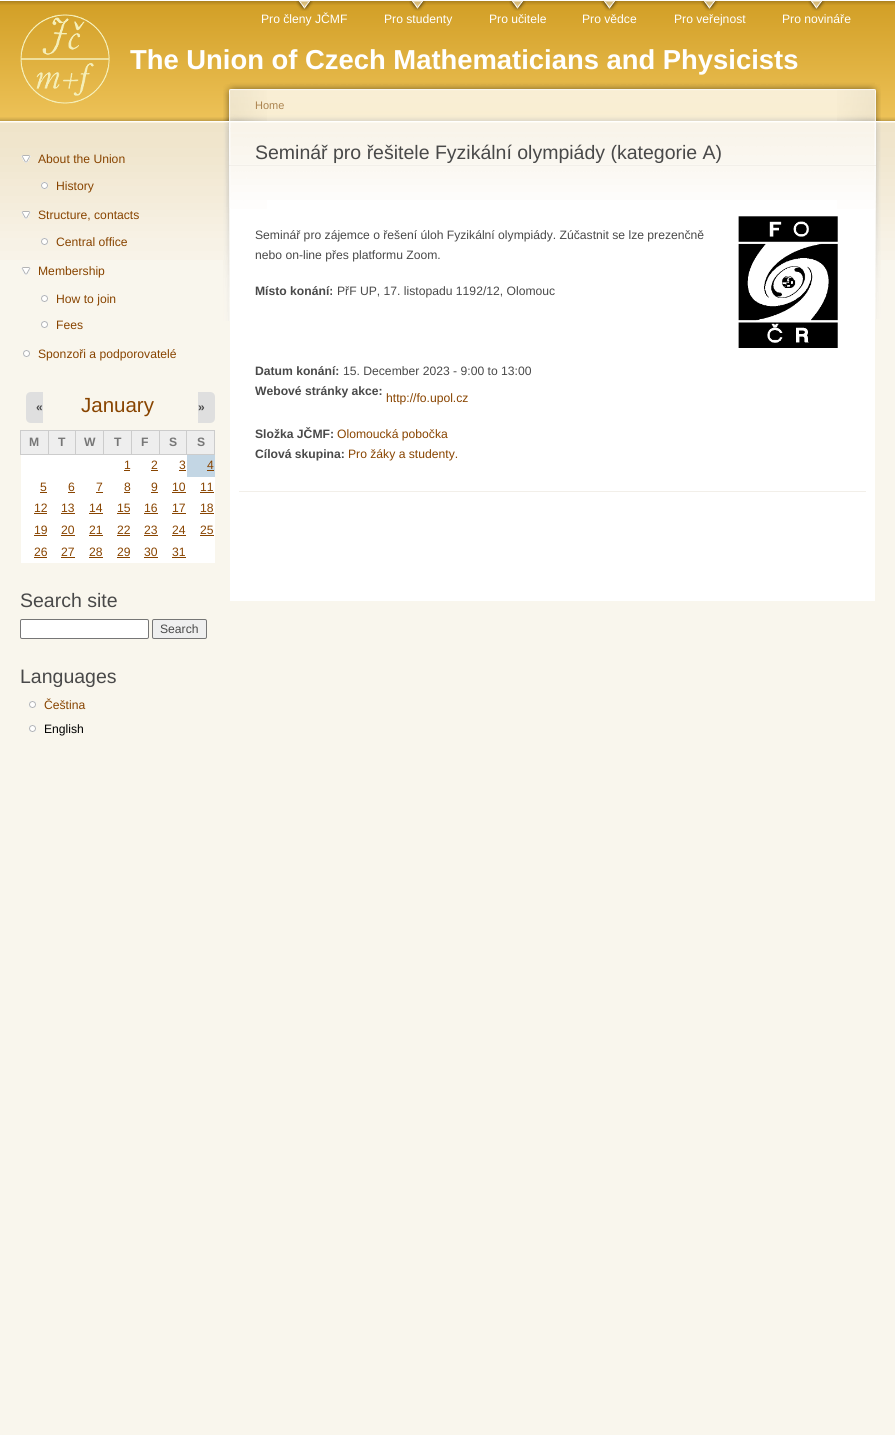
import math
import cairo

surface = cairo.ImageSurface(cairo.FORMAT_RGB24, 895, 1435)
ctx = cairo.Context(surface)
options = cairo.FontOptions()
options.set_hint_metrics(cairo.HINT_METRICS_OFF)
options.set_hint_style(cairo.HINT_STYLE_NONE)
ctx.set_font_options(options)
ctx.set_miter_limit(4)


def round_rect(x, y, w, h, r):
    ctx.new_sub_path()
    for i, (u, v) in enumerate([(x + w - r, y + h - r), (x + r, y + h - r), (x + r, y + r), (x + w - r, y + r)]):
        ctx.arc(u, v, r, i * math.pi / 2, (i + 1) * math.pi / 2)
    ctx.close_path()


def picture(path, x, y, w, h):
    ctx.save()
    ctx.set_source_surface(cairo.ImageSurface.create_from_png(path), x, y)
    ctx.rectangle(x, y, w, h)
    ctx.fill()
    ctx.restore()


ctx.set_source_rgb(0.976, 0.961, 0.929)
ctx.paint()
picture("img1.png", 0, 0, 895, 260)
picture("img2.png", 296, 1, 17, 10)
ctx.select_font_face("Liberation Sans")
ctx.set_font_size(12.15)
ctx.set_source_rgb(1, 1, 1)
ctx.move_to(261, 23)
ctx.show_text("Pro členy JČMF")
picture("img2.png", 409, 1, 17, 10)
ctx.move_to(384, 23)
ctx.show_text("Pro studenty")
picture("img2.png", 509, 1, 17, 10)
ctx.move_to(489, 23)
ctx.show_text("Pro učitele")
picture("img2.png", 601, 1, 17, 10)
ctx.move_to(582, 23)
ctx.show_text("Pro vědce")
picture("img2.png", 701, 1, 17, 10)
ctx.move_to(674, 23)
ctx.show_text("Pro veřejnost")
picture("img2.png", 808, 1, 17, 10)
ctx.move_to(782, 23)
ctx.show_text("Pro novináře")
picture("img3.png", 20, 14, 90, 90)
ctx.select_font_face("Liberation Sans", cairo.FONT_SLANT_NORMAL, cairo.FONT_WEIGHT_BOLD)
ctx.set_font_size(27.4)
ctx.move_to(130, 69)
ctx.show_text("The Union of Czech Mathematicians and Physicists")
picture("img4.png", 21, 155, 10, 8)
ctx.select_font_face("Liberation Sans")
ctx.set_font_size(12.15)
ctx.set_source_rgb(0.533, 0.267, 0)
ctx.move_to(38, 163)
ctx.show_text("About the Union")
picture("img5.png", 41, 182, 7, 7)
ctx.move_to(56, 190)
ctx.show_text("History")
picture("img6.png", 21, 211, 10, 8)
ctx.move_to(38, 219)
ctx.show_text("Structure, contacts")
picture("img7.png", 41, 238, 7, 7)
ctx.move_to(56, 246)
ctx.show_text("Central office")
picture("img8.png", 21, 267, 10, 8)
ctx.move_to(38, 275)
ctx.show_text("Membership")
picture("img9.png", 41, 295, 7, 7)
ctx.move_to(56, 303)
ctx.show_text("How to join")
picture("img9.png", 41, 321, 7, 7)
ctx.move_to(56, 329)
ctx.show_text("Fees")
picture("img9.png", 23, 350, 7, 7)
ctx.move_to(38, 358)
ctx.show_text("Sponzoři a podporovatelé")
ctx.set_font_size(20.5)
ctx.move_to(81, 412)
ctx.show_text("January")
ctx.set_source_rgb(0.875, 0.875, 0.875)
ctx.new_path()
ctx.move_to(31, 392)
ctx.line_to(43, 392)
ctx.line_to(43, 423)
ctx.line_to(31, 423)
ctx.curve_to(28, 423, 26, 421, 26, 418)
ctx.line_to(26, 397)
ctx.curve_to(26, 394, 28, 392, 31, 392)
ctx.close_path()
ctx.fill()
ctx.select_font_face("Liberation Sans", cairo.FONT_SLANT_NORMAL, cairo.FONT_WEIGHT_BOLD)
ctx.set_font_size(12)
ctx.set_source_rgb(0.286, 0.286, 0.286)
ctx.move_to(36, 411)
ctx.show_text("«")
ctx.set_source_rgb(0.875, 0.875, 0.875)
ctx.new_path()
ctx.move_to(198, 392)
ctx.line_to(210, 392)
ctx.curve_to(213, 392, 215, 394, 215, 397)
ctx.line_to(215, 418)
ctx.curve_to(215, 421, 213, 423, 210, 423)
ctx.line_to(198, 423)
ctx.close_path()
ctx.fill()
ctx.set_source_rgb(0.286, 0.286, 0.286)
ctx.move_to(198, 411)
ctx.show_text("»")
ctx.set_source_rgb(0.933, 0.933, 0.933)
ctx.rectangle(21, 431, 27, 23)
ctx.fill()
ctx.set_source_rgb(0.8, 0.8, 0.8)
ctx.rectangle(186, 430, 29, 1)
ctx.fill()
ctx.rectangle(214, 430, 1, 25)
ctx.fill()
ctx.rectangle(186, 454, 29, 1)
ctx.fill()
ctx.rectangle(186, 430, 1, 25)
ctx.fill()
ctx.rectangle(159, 430, 28, 1)
ctx.fill()
ctx.rectangle(159, 454, 28, 1)
ctx.fill()
ctx.rectangle(159, 430, 1, 25)
ctx.fill()
ctx.rectangle(131, 430, 29, 1)
ctx.fill()
ctx.rectangle(131, 454, 29, 1)
ctx.fill()
ctx.rectangle(131, 430, 1, 25)
ctx.fill()
ctx.rectangle(103, 430, 29, 1)
ctx.fill()
ctx.rectangle(103, 454, 29, 1)
ctx.fill()
ctx.rectangle(103, 430, 1, 25)
ctx.fill()
ctx.rectangle(75, 430, 29, 1)
ctx.fill()
ctx.rectangle(75, 454, 29, 1)
ctx.fill()
ctx.rectangle(75, 430, 1, 25)
ctx.fill()
ctx.rectangle(48, 430, 28, 1)
ctx.fill()
ctx.rectangle(48, 454, 28, 1)
ctx.fill()
ctx.rectangle(48, 430, 1, 25)
ctx.fill()
ctx.rectangle(20, 430, 29, 1)
ctx.fill()
ctx.rectangle(20, 454, 29, 1)
ctx.fill()
ctx.rectangle(20, 430, 1, 25)
ctx.fill()
ctx.set_font_size(12.15)
ctx.set_source_rgb(0.467, 0.467, 0.467)
ctx.move_to(29, 446)
ctx.show_text("M")
ctx.set_source_rgb(0.933, 0.933, 0.933)
ctx.rectangle(49, 431, 26, 23)
ctx.fill()
ctx.set_source_rgb(0.467, 0.467, 0.467)
ctx.move_to(58, 446)
ctx.show_text("T")
ctx.set_source_rgb(0.933, 0.933, 0.933)
ctx.rectangle(76, 431, 27, 23)
ctx.fill()
ctx.set_source_rgb(0.467, 0.467, 0.467)
ctx.move_to(84, 446)
ctx.show_text("W")
ctx.set_source_rgb(0.933, 0.933, 0.933)
ctx.rectangle(104, 431, 27, 23)
ctx.fill()
ctx.set_source_rgb(0.467, 0.467, 0.467)
ctx.move_to(114, 446)
ctx.show_text("T")
ctx.set_source_rgb(0.933, 0.933, 0.933)
ctx.rectangle(132, 431, 27, 23)
ctx.fill()
ctx.set_source_rgb(0.467, 0.467, 0.467)
ctx.move_to(141, 446)
ctx.show_text("F")
ctx.set_source_rgb(0.933, 0.933, 0.933)
ctx.rectangle(160, 431, 26, 23)
ctx.fill()
ctx.set_source_rgb(0.467, 0.467, 0.467)
ctx.move_to(169, 446)
ctx.show_text("S")
ctx.set_source_rgb(0.933, 0.933, 0.933)
ctx.rectangle(187, 431, 27, 23)
ctx.fill()
ctx.set_source_rgb(0.467, 0.467, 0.467)
ctx.move_to(197, 446)
ctx.show_text("S")
ctx.set_source_rgb(1, 1, 1)
ctx.rectangle(21, 455, 166, 22)
ctx.fill()
ctx.select_font_face("Liberation Sans")
ctx.set_source_rgb(0.533, 0.267, 0)
ctx.move_to(124, 469)
ctx.show_text("1")
ctx.rectangle(124, 470, 6, 1)
ctx.fill()
ctx.move_to(151, 469)
ctx.show_text("2")
ctx.rectangle(151, 470, 7, 1)
ctx.fill()
ctx.move_to(179, 469)
ctx.show_text("3")
ctx.rectangle(179, 470, 7, 1)
ctx.fill()
ctx.set_source_rgb(0.765, 0.839, 0.894)
ctx.rectangle(187, 455, 28, 22)
ctx.fill()
ctx.set_source_rgb(0.533, 0.267, 0)
ctx.move_to(207, 469)
ctx.show_text("4")
ctx.rectangle(207, 470, 7, 1)
ctx.fill()
ctx.set_source_rgb(1, 1, 1)
ctx.rectangle(21, 477, 194, 86)
ctx.fill()
ctx.set_source_rgb(0.533, 0.267, 0)
ctx.move_to(40, 491)
ctx.show_text("5")
ctx.rectangle(40, 492, 7, 1)
ctx.fill()
ctx.move_to(68, 491)
ctx.show_text("6")
ctx.rectangle(68, 492, 7, 1)
ctx.fill()
ctx.move_to(96, 491)
ctx.show_text("7")
ctx.rectangle(96, 492, 7, 1)
ctx.fill()
ctx.move_to(124, 491)
ctx.show_text("8")
ctx.rectangle(124, 492, 6, 1)
ctx.fill()
ctx.move_to(151, 491)
ctx.show_text("9")
ctx.rectangle(151, 492, 7, 1)
ctx.fill()
ctx.move_to(172, 491)
ctx.show_text("10")
ctx.rectangle(172, 492, 14, 1)
ctx.fill()
ctx.move_to(200, 491)
ctx.show_text("11")
ctx.rectangle(200, 492, 14, 1)
ctx.fill()
ctx.move_to(34, 512)
ctx.show_text("12")
ctx.rectangle(34, 513, 13, 1)
ctx.fill()
ctx.move_to(61, 512)
ctx.show_text("13")
ctx.rectangle(61, 513, 14, 1)
ctx.fill()
ctx.move_to(89, 512)
ctx.show_text("14")
ctx.rectangle(89, 513, 14, 1)
ctx.fill()
ctx.move_to(117, 512)
ctx.show_text("15")
ctx.rectangle(117, 513, 13, 1)
ctx.fill()
ctx.move_to(144, 512)
ctx.show_text("16")
ctx.rectangle(144, 513, 14, 1)
ctx.fill()
ctx.move_to(172, 512)
ctx.show_text("17")
ctx.rectangle(172, 513, 14, 1)
ctx.fill()
ctx.move_to(200, 512)
ctx.show_text("18")
ctx.rectangle(200, 513, 14, 1)
ctx.fill()
ctx.move_to(34, 534)
ctx.show_text("19")
ctx.rectangle(34, 535, 13, 1)
ctx.fill()
ctx.move_to(61, 534)
ctx.show_text("20")
ctx.rectangle(61, 535, 14, 1)
ctx.fill()
ctx.move_to(89, 534)
ctx.show_text("21")
ctx.rectangle(89, 535, 14, 1)
ctx.fill()
ctx.move_to(117, 534)
ctx.show_text("22")
ctx.rectangle(117, 535, 13, 1)
ctx.fill()
ctx.move_to(144, 534)
ctx.show_text("23")
ctx.rectangle(144, 535, 14, 1)
ctx.fill()
ctx.move_to(172, 534)
ctx.show_text("24")
ctx.rectangle(172, 535, 14, 1)
ctx.fill()
ctx.move_to(200, 534)
ctx.show_text("25")
ctx.rectangle(200, 535, 14, 1)
ctx.fill()
ctx.move_to(34, 556)
ctx.show_text("26")
ctx.rectangle(34, 557, 13, 1)
ctx.fill()
ctx.move_to(61, 556)
ctx.show_text("27")
ctx.rectangle(61, 557, 14, 1)
ctx.fill()
ctx.move_to(89, 556)
ctx.show_text("28")
ctx.rectangle(89, 557, 14, 1)
ctx.fill()
ctx.move_to(117, 556)
ctx.show_text("29")
ctx.rectangle(117, 557, 13, 1)
ctx.fill()
ctx.move_to(144, 556)
ctx.show_text("30")
ctx.rectangle(144, 557, 14, 1)
ctx.fill()
ctx.move_to(172, 556)
ctx.show_text("31")
ctx.rectangle(172, 557, 14, 1)
ctx.fill()
ctx.set_font_size(19.5)
ctx.set_source_rgb(0.286, 0.286, 0.286)
ctx.move_to(20, 607)
ctx.show_text("Search site")
ctx.set_source_rgb(1, 1, 1)
round_rect(20.5, 619.5, 128, 19, 1.5)
ctx.fill_preserve()
ctx.set_source_rgb(0.463, 0.463, 0.463)
ctx.set_line_width(1)
ctx.stroke()
ctx.set_source_rgb(0.937, 0.937, 0.937)
round_rect(152.5, 619.5, 54, 19, 1.5)
ctx.fill_preserve()
ctx.set_source_rgb(0.463, 0.463, 0.463)
ctx.stroke()
ctx.set_font_size(12.15)
ctx.set_source_rgb(0.286, 0.286, 0.286)
ctx.move_to(160, 633)
ctx.show_text("Search")
ctx.set_font_size(19.5)
ctx.move_to(20, 683)
ctx.show_text("Languages")
picture("img9.png", 29, 701, 7, 7)
ctx.set_font_size(12.15)
ctx.set_source_rgb(0.533, 0.267, 0)
ctx.move_to(44, 709)
ctx.show_text("Čeština")
picture("img9.png", 29, 725, 7, 7)
ctx.set_source_rgb(0, 0, 0)
ctx.move_to(44, 733)
ctx.show_text("English")
ctx.set_source_rgb(1, 1, 1)
ctx.rectangle(230, 200, 645, 401)
ctx.fill()
picture("img10.png", 230, 80, 645, 120)
picture("img11.png", 837, 84, 44, 235)
picture("img12.png", 223, 84, 44, 237)
ctx.set_font_size(11)
ctx.set_source_rgb(0.671, 0.514, 0.31)
ctx.move_to(255, 109)
ctx.show_text("Home")
ctx.set_source_rgb(0.949, 0.937, 0.914)
ctx.rectangle(229, 165, 647, 1)
ctx.fill()
ctx.set_font_size(19.5)
ctx.set_source_rgb(0.286, 0.286, 0.286)
ctx.move_to(255, 159)
ctx.show_text("Seminář pro řešitele Fyzikální olympiády (kategorie A)")
ctx.set_source_rgb(0.949, 0.937, 0.914)
ctx.rectangle(239, 491, 627, 1)
ctx.fill()
ctx.set_font_size(12.15)
ctx.set_source_rgb(0.286, 0.286, 0.286)
ctx.move_to(255, 239)
ctx.show_text("Seminář pro zájemce o řešení úloh Fyzikální olympiády. Zúčastnit se lze prezenčně")
picture("img13.png", 738, 216, 100, 132)
ctx.move_to(255, 259)
ctx.show_text("nebo on-line přes platformu Zoom.")
ctx.select_font_face("Liberation Sans", cairo.FONT_SLANT_NORMAL, cairo.FONT_WEIGHT_BOLD)
ctx.move_to(255, 295)
ctx.show_text("Místo konání:")
ctx.select_font_face("Liberation Sans")
ctx.move_to(337, 295)
ctx.show_text("PřF UP, 17. listopadu 1192/12, Olomouc")
ctx.select_font_face("Liberation Sans", cairo.FONT_SLANT_NORMAL, cairo.FONT_WEIGHT_BOLD)
ctx.move_to(255, 375)
ctx.show_text("Datum konání:")
ctx.select_font_face("Liberation Sans")
ctx.move_to(343, 375)
ctx.show_text("15. December 2023 - 9:00 to 13:00")
ctx.select_font_face("Liberation Sans", cairo.FONT_SLANT_NORMAL, cairo.FONT_WEIGHT_BOLD)
ctx.move_to(255, 395)
ctx.show_text("Webové stránky akce:")
ctx.select_font_face("Liberation Sans")
ctx.set_source_rgb(0.533, 0.267, 0)
ctx.move_to(386, 402)
ctx.show_text("http://fo.upol.cz")
ctx.select_font_face("Liberation Sans", cairo.FONT_SLANT_NORMAL, cairo.FONT_WEIGHT_BOLD)
ctx.set_source_rgb(0.286, 0.286, 0.286)
ctx.move_to(255, 438)
ctx.show_text("Složka JČMF:")
ctx.select_font_face("Liberation Sans")
ctx.set_source_rgb(0.533, 0.267, 0)
ctx.move_to(337, 438)
ctx.show_text("Olomoucká pobočka")
ctx.select_font_face("Liberation Sans", cairo.FONT_SLANT_NORMAL, cairo.FONT_WEIGHT_BOLD)
ctx.set_source_rgb(0.286, 0.286, 0.286)
ctx.move_to(255, 458)
ctx.show_text("Cílová skupina:")
ctx.select_font_face("Liberation Sans")
ctx.set_source_rgb(0.533, 0.267, 0)
ctx.move_to(348, 458)
ctx.show_text("Pro žáky a studenty.")
surface.write_to_png("page.png")
